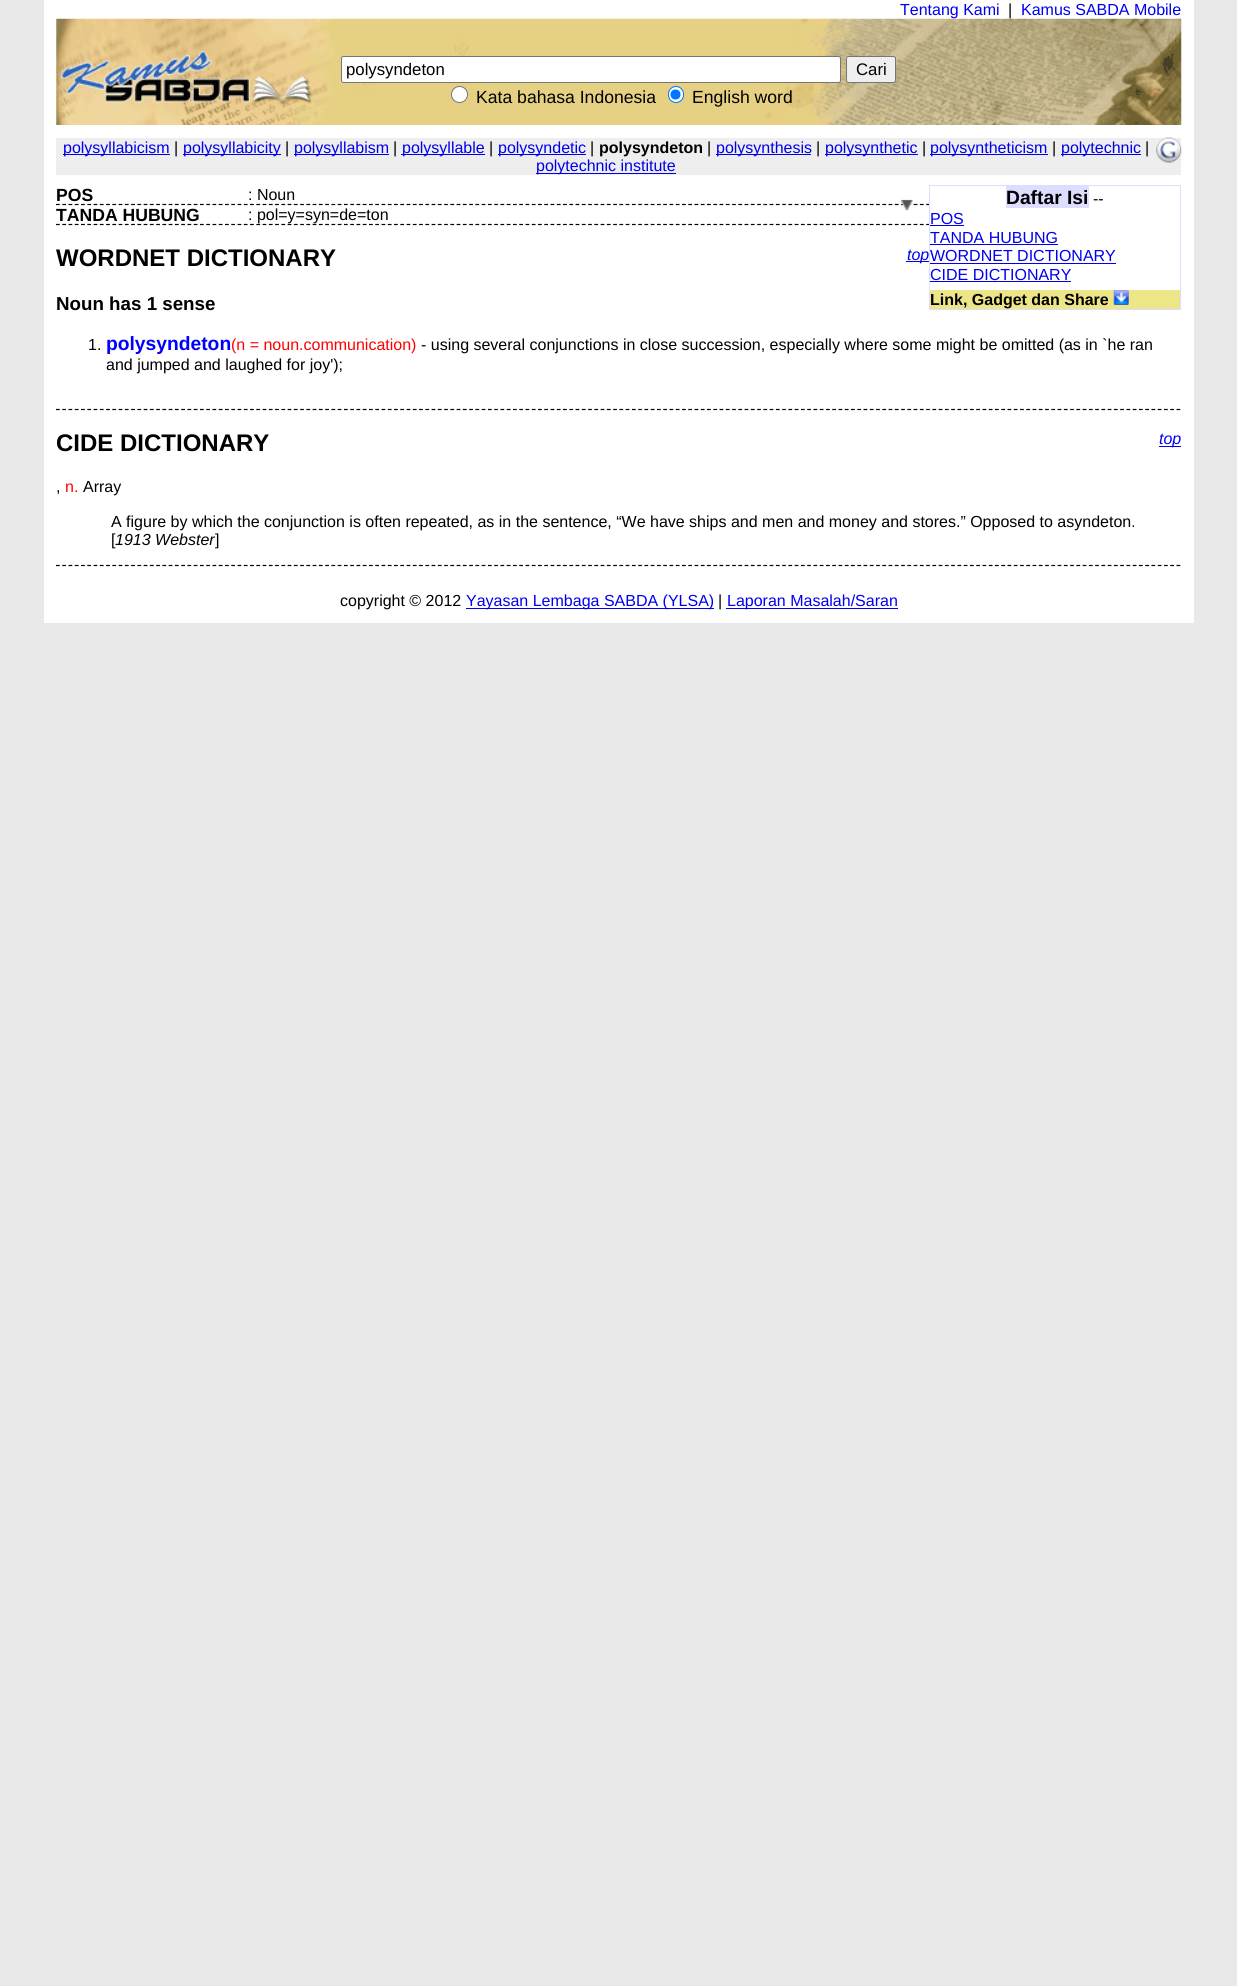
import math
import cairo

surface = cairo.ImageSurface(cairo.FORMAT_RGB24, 1237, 1986)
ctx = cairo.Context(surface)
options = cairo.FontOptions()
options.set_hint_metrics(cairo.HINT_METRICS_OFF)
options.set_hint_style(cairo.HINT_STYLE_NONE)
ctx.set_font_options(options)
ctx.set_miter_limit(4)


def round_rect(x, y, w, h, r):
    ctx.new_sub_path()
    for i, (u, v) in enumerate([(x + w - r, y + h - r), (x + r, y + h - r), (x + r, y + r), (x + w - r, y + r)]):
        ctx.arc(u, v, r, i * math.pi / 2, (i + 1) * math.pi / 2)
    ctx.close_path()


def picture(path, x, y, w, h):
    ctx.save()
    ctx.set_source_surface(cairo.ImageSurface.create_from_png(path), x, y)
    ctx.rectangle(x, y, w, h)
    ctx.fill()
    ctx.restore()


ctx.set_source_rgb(0.914, 0.914, 0.914)
ctx.paint()
ctx.set_source_rgb(1, 1, 1)
ctx.rectangle(44, 0, 1150, 623)
ctx.fill()
picture("img1.png", 56, 18, 1126, 107)
ctx.select_font_face("Liberation Sans")
ctx.set_font_size(16)
ctx.set_source_rgb(0, 0, 0.933)
ctx.move_to(900, 15)
ctx.show_text("Tentang Kami")
ctx.set_source_rgb(0, 0, 0)
ctx.move_to(1008, 15)
ctx.show_text("|")
ctx.set_source_rgb(0, 0, 0.933)
ctx.move_to(1021, 15)
ctx.show_text("Kamus SABDA Mobile")
ctx.set_source_rgb(1, 1, 1)
round_rect(341.5, 56.5, 499, 26, 2)
ctx.fill_preserve()
ctx.set_source_rgb(0.463, 0.463, 0.463)
ctx.set_line_width(1)
ctx.stroke()
ctx.set_font_size(16.75)
ctx.set_source_rgb(0, 0, 0)
ctx.move_to(346, 75)
ctx.show_text("polysyndeton")
ctx.set_source_rgb(0.937, 0.937, 0.937)
round_rect(846.5, 56.5, 49, 26, 2)
ctx.fill_preserve()
ctx.set_source_rgb(0.463, 0.463, 0.463)
ctx.stroke()
ctx.set_source_rgb(0, 0, 0)
ctx.move_to(856, 75)
ctx.show_text("Cari")
ctx.set_source_rgb(1, 1, 1)
ctx.new_path()
ctx.arc(459.5, 94.5, 8, 0, 2 * math.pi)
ctx.fill_preserve()
ctx.set_source_rgb(0.463, 0.463, 0.463)
ctx.stroke()
ctx.set_font_size(17.6)
ctx.set_source_rgb(0, 0, 0)
ctx.move_to(476, 103)
ctx.show_text("Kata bahasa Indonesia")
ctx.set_source_rgb(1, 1, 1)
round_rect(668.5, 86.5, 15, 16, 7.5)
ctx.fill_preserve()
ctx.set_source_rgb(0, 0.459, 1)
ctx.stroke()
ctx.arc(675.5, 94.5, 5, 0, 2 * math.pi)
ctx.fill()
ctx.set_source_rgb(0, 0, 0)
ctx.move_to(692, 103)
ctx.show_text("English word")
ctx.set_source_rgb(0.933, 0.933, 0.933)
ctx.rectangle(56, 138, 1125, 37)
ctx.fill()
ctx.set_source_rgb(0, 0, 0.933)
ctx.rectangle(63, 154, 107, 1)
ctx.fill()
ctx.set_font_size(16)
ctx.move_to(63, 153)
ctx.show_text("polysyllabicism")
ctx.set_source_rgb(0, 0, 0)
ctx.move_to(174, 153)
ctx.show_text("|")
ctx.set_source_rgb(0, 0, 0.933)
ctx.rectangle(183, 154, 98, 1)
ctx.fill()
ctx.move_to(183, 153)
ctx.show_text("polysyllabicity")
ctx.set_source_rgb(0, 0, 0)
ctx.move_to(285, 153)
ctx.show_text("|")
ctx.set_source_rgb(0, 0, 0.933)
ctx.rectangle(294, 154, 95, 1)
ctx.fill()
ctx.move_to(294, 153)
ctx.show_text("polysyllabism")
ctx.set_source_rgb(0, 0, 0)
ctx.move_to(393, 153)
ctx.show_text("|")
ctx.set_source_rgb(0, 0, 0.933)
ctx.rectangle(401, 154, 84, 1)
ctx.fill()
ctx.move_to(402, 153)
ctx.show_text("polysyllable")
ctx.set_source_rgb(0, 0, 0)
ctx.move_to(489, 153)
ctx.show_text("|")
ctx.set_source_rgb(0, 0, 0.933)
ctx.rectangle(498, 154, 88, 1)
ctx.fill()
ctx.move_to(498, 153)
ctx.show_text("polysyndetic")
ctx.set_source_rgb(0, 0, 0)
ctx.move_to(590, 153)
ctx.show_text("|")
ctx.select_font_face("Liberation Sans", cairo.FONT_SLANT_NORMAL, cairo.FONT_WEIGHT_BOLD)
ctx.move_to(599, 153)
ctx.show_text("polysyndeton")
ctx.select_font_face("Liberation Sans")
ctx.move_to(707, 153)
ctx.show_text("|")
ctx.set_source_rgb(0, 0, 0.933)
ctx.rectangle(716, 154, 95, 1)
ctx.fill()
ctx.move_to(716, 153)
ctx.show_text("polysynthesis")
ctx.set_source_rgb(0, 0, 0)
ctx.move_to(816, 153)
ctx.show_text("|")
ctx.set_source_rgb(0, 0, 0.933)
ctx.rectangle(825, 154, 93, 1)
ctx.fill()
ctx.move_to(825, 153)
ctx.show_text("polysynthetic")
ctx.set_source_rgb(0, 0, 0)
ctx.move_to(922, 153)
ctx.show_text("|")
ctx.set_source_rgb(0, 0, 0.933)
ctx.rectangle(930, 154, 118, 1)
ctx.fill()
ctx.move_to(930, 153)
ctx.show_text("polysyntheticism")
ctx.set_source_rgb(0, 0, 0)
ctx.move_to(1052, 153)
ctx.show_text("|")
ctx.set_source_rgb(0, 0, 0.933)
ctx.rectangle(1061, 154, 80, 1)
ctx.fill()
ctx.move_to(1061, 153)
ctx.show_text("polytechnic")
ctx.set_source_rgb(0, 0, 0)
ctx.move_to(1145, 153)
ctx.show_text("|")
ctx.set_source_rgb(0, 0, 0.933)
ctx.rectangle(536, 173, 140, 1)
ctx.fill()
ctx.move_to(536, 171)
ctx.show_text("polytechnic institute")
picture("img2.png", 1156, 137, 26, 26)
ctx.new_path()
ctx.move_to(56, 204.5)
ctx.line_to(1181, 204.5)
ctx.set_source_rgb(0, 0, 0)
ctx.set_line_width(1.2)
ctx.set_dash([3.75, 2.51])
ctx.stroke()
ctx.select_font_face("Liberation Sans", cairo.FONT_SLANT_NORMAL, cairo.FONT_WEIGHT_BOLD)
ctx.set_font_size(17.6)
ctx.move_to(56, 201)
ctx.show_text("POS")
ctx.select_font_face("Liberation Sans")
ctx.set_font_size(16)
ctx.move_to(248, 200)
ctx.show_text(": Noun")
ctx.new_path()
ctx.move_to(56, 224.5)
ctx.line_to(1181, 224.5)
ctx.stroke()
ctx.select_font_face("Liberation Sans", cairo.FONT_SLANT_NORMAL, cairo.FONT_WEIGHT_BOLD)
ctx.set_font_size(17.6)
ctx.move_to(56, 221)
ctx.show_text("TANDA HUBUNG")
ctx.select_font_face("Liberation Sans")
ctx.set_font_size(16)
ctx.move_to(248, 220)
ctx.show_text(": pol=y=syn=de=ton")
ctx.new_path()
ctx.move_to(56, 409.5)
ctx.line_to(1181, 409.5)
ctx.stroke()
ctx.select_font_face("Liberation Sans", cairo.FONT_SLANT_NORMAL, cairo.FONT_WEIGHT_BOLD)
ctx.set_font_size(24)
ctx.move_to(56, 266)
ctx.show_text("WORDNET DICTIONARY")
ctx.set_source_rgb(0, 0, 0.933)
ctx.rectangle(906, 261, 23, 1)
ctx.fill()
ctx.select_font_face("Liberation Sans", cairo.FONT_SLANT_ITALIC)
ctx.set_font_size(16)
ctx.move_to(907, 260)
ctx.show_text("top")
ctx.select_font_face("Liberation Sans", cairo.FONT_SLANT_NORMAL, cairo.FONT_WEIGHT_BOLD)
ctx.set_font_size(18.75)
ctx.set_source_rgb(0, 0, 0)
ctx.move_to(56, 310)
ctx.show_text("Noun has 1 sense")
ctx.select_font_face("Liberation Sans")
ctx.set_font_size(16)
ctx.move_to(88, 350)
ctx.show_text("1.")
ctx.select_font_face("Liberation Sans", cairo.FONT_SLANT_NORMAL, cairo.FONT_WEIGHT_BOLD)
ctx.set_font_size(19.25)
ctx.set_source_rgb(0, 0, 1)
ctx.move_to(106, 350)
ctx.show_text("polysyndeton")
ctx.select_font_face("Liberation Sans")
ctx.set_font_size(16)
ctx.set_source_rgb(1, 0, 0)
ctx.move_to(231, 350)
ctx.show_text("(n = noun.communication)")
ctx.set_source_rgb(0, 0, 0)
ctx.move_to(421, 350)
ctx.show_text("- using several conjunctions in close succession, especially where some might be omitted (as in `he ran")
ctx.move_to(106, 370)
ctx.show_text("and jumped and laughed for joy');")
ctx.new_path()
ctx.move_to(56, 565.5)
ctx.line_to(1181, 565.5)
ctx.stroke()
ctx.select_font_face("Liberation Sans", cairo.FONT_SLANT_NORMAL, cairo.FONT_WEIGHT_BOLD)
ctx.set_font_size(24)
ctx.move_to(56, 451)
ctx.show_text("CIDE DICTIONARY")
ctx.set_source_rgb(0, 0, 0.933)
ctx.rectangle(1159, 446, 22, 1)
ctx.fill()
ctx.select_font_face("Liberation Sans", cairo.FONT_SLANT_ITALIC)
ctx.set_font_size(16)
ctx.move_to(1159, 444)
ctx.show_text("top")
ctx.select_font_face("Liberation Sans")
ctx.set_source_rgb(1, 0, 0)
ctx.move_to(65, 492)
ctx.show_text("n.")
ctx.set_source_rgb(0, 0, 0)
ctx.move_to(83, 492)
ctx.show_text("Array")
ctx.move_to(56, 492)
ctx.show_text(",")
ctx.move_to(111, 527)
ctx.show_text("A figure by which the conjunction is often repeated, as in the sentence, “We have ships and men and money and stores.” Opposed to asyndeton.")
ctx.move_to(111, 545)
ctx.show_text("[")
ctx.select_font_face("Liberation Sans", cairo.FONT_SLANT_ITALIC)
ctx.move_to(115, 545)
ctx.show_text("1913 Webster")
ctx.select_font_face("Liberation Sans")
ctx.move_to(215, 545)
ctx.show_text("]")
picture("img3.png", 901, 199, 12, 12)
ctx.set_source_rgb(1, 1, 1)
ctx.rectangle(932, 203, 248, 23)
ctx.fill()
ctx.rectangle(929.5, 185.5, 251, 124)
ctx.set_source_rgb(0.867, 0.867, 1)
ctx.set_line_width(1)
ctx.set_dash([])
ctx.stroke()
ctx.rectangle(1006, 186, 83, 22)
ctx.fill()
ctx.select_font_face("Liberation Sans", cairo.FONT_SLANT_NORMAL, cairo.FONT_WEIGHT_BOLD)
ctx.set_font_size(19.25)
ctx.set_source_rgb(0, 0, 0)
ctx.move_to(1006, 204)
ctx.show_text("Daftar Isi")
ctx.select_font_face("Liberation Sans")
ctx.set_font_size(16)
ctx.move_to(1093, 204)
ctx.show_text("--")
ctx.set_source_rgb(0, 0, 0.933)
ctx.move_to(930, 224)
ctx.show_text("POS")
ctx.rectangle(930, 225, 34, 1)
ctx.fill()
ctx.move_to(930, 243)
ctx.show_text("TANDA HUBUNG")
ctx.rectangle(930, 244, 128, 1)
ctx.fill()
ctx.move_to(930, 261)
ctx.show_text("WORDNET DICTIONARY")
ctx.rectangle(930, 263, 186, 1)
ctx.fill()
ctx.move_to(930, 280)
ctx.show_text("CIDE DICTIONARY")
ctx.rectangle(930, 281, 141, 1)
ctx.fill()
ctx.set_source_rgb(0.929, 0.902, 0.537)
ctx.rectangle(930, 290, 250, 19)
ctx.fill()
ctx.select_font_face("Liberation Sans", cairo.FONT_SLANT_NORMAL, cairo.FONT_WEIGHT_BOLD)
ctx.set_source_rgb(0, 0, 0)
ctx.move_to(930, 305)
ctx.show_text("Link, Gadget dan Share")
picture("img4.png", 1113, 290, 16, 15)
ctx.select_font_face("Liberation Sans")
ctx.move_to(340, 606)
ctx.show_text("copyright © 2012")
ctx.set_source_rgb(0, 0, 0.933)
ctx.rectangle(466, 608, 248, 1)
ctx.fill()
ctx.move_to(466, 606)
ctx.show_text("Yayasan Lembaga SABDA (YLSA)")
ctx.set_source_rgb(0, 0, 0)
ctx.move_to(718, 606)
ctx.show_text("|")
ctx.set_source_rgb(0, 0, 0.933)
ctx.rectangle(726, 608, 172, 1)
ctx.fill()
ctx.move_to(727, 606)
ctx.show_text("Laporan Masalah/Saran")
surface.write_to_png("page.png")
